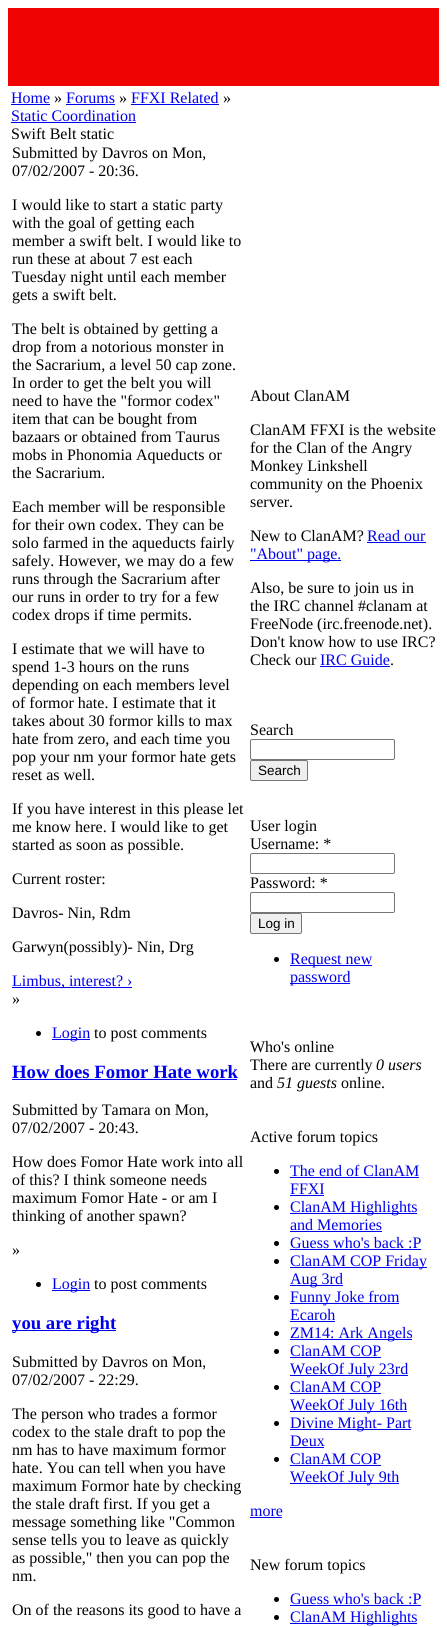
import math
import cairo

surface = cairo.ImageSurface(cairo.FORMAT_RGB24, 447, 1627)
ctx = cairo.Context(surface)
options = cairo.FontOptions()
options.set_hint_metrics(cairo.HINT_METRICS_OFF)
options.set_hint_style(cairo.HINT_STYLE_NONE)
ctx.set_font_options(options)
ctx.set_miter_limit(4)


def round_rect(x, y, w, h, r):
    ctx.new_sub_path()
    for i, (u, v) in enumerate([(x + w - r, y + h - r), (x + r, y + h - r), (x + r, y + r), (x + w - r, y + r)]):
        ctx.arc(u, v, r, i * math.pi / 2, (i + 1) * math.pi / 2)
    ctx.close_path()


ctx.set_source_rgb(1, 1, 1)
ctx.paint()
ctx.set_source_rgb(0.937, 0.012, 0.012)
ctx.rectangle(8, 8, 431, 78)
ctx.fill()
ctx.select_font_face("Liberation Serif")
ctx.set_font_size(16)
ctx.set_source_rgb(0, 0, 0.933)
ctx.move_to(11, 103)
ctx.show_text("Home")
ctx.rectangle(11, 104, 39, 1)
ctx.fill()
ctx.set_source_rgb(0, 0, 0)
ctx.move_to(54, 103)
ctx.show_text("»")
ctx.set_source_rgb(0, 0, 0.933)
ctx.move_to(66, 103)
ctx.show_text("Forums")
ctx.rectangle(66, 104, 49, 1)
ctx.fill()
ctx.set_source_rgb(0, 0, 0)
ctx.move_to(119, 103)
ctx.show_text("»")
ctx.set_source_rgb(0, 0, 0.933)
ctx.move_to(131, 103)
ctx.show_text("FFXI Related")
ctx.rectangle(131, 104, 88, 1)
ctx.fill()
ctx.set_source_rgb(0, 0, 0)
ctx.move_to(223, 103)
ctx.show_text("»")
ctx.set_source_rgb(0, 0, 0.933)
ctx.move_to(11, 121)
ctx.show_text("Static Coordination")
ctx.rectangle(11, 122, 125, 1)
ctx.fill()
ctx.set_source_rgb(0, 0, 0)
ctx.move_to(11, 139)
ctx.show_text("Swift Belt static")
ctx.move_to(12, 158)
ctx.show_text("Submitted by Davros on Mon,")
ctx.move_to(12, 176)
ctx.show_text("07/02/2007 - 20:36.")
ctx.move_to(12, 210)
ctx.show_text("I would like to start a static party")
ctx.move_to(12, 228)
ctx.show_text("with the goal of getting each")
ctx.move_to(12, 246)
ctx.show_text("member a swift belt. I would like to")
ctx.move_to(12, 264)
ctx.show_text("run these at about 7 est each")
ctx.move_to(12, 282)
ctx.show_text("Tuesday night until each member")
ctx.move_to(12, 300)
ctx.show_text("gets a swift belt.")
ctx.move_to(12, 334)
ctx.show_text("The belt is obtained by getting a")
ctx.move_to(12, 352)
ctx.show_text("drop from a notorious monster in")
ctx.move_to(12, 370)
ctx.show_text("the Sacrarium, a level 50 cap zone.")
ctx.move_to(12, 388)
ctx.show_text("In order to get the belt you will")
ctx.move_to(12, 406)
ctx.show_text("need to have the \"formor codex\"")
ctx.move_to(12, 424)
ctx.show_text("item that can be bought from")
ctx.move_to(12, 442)
ctx.show_text("bazaars or obtained from Taurus")
ctx.move_to(12, 460)
ctx.show_text("mobs in Phonomia Aqueducts or")
ctx.move_to(12, 478)
ctx.show_text("the Sacrarium.")
ctx.move_to(12, 512)
ctx.show_text("Each member will be responsible")
ctx.move_to(12, 530)
ctx.show_text("for their own codex. They can be")
ctx.move_to(12, 548)
ctx.show_text("solo farmed in the aqueducts fairly")
ctx.move_to(12, 566)
ctx.show_text("safely. However, we may do a few")
ctx.move_to(12, 584)
ctx.show_text("runs through the Sacrarium after")
ctx.move_to(12, 602)
ctx.show_text("our runs in order to try for a few")
ctx.move_to(12, 620)
ctx.show_text("codex drops if time permits.")
ctx.move_to(12, 654)
ctx.show_text("I estimate that we will have to")
ctx.move_to(12, 672)
ctx.show_text("spend 1-3 hours on the runs")
ctx.move_to(12, 690)
ctx.show_text("depending on each members level")
ctx.move_to(12, 708)
ctx.show_text("of formor hate. I estimate that it")
ctx.move_to(12, 726)
ctx.show_text("takes about 30 formor kills to max")
ctx.move_to(12, 744)
ctx.show_text("hate from zero, and each time you")
ctx.move_to(12, 762)
ctx.show_text("pop your nm your formor hate gets")
ctx.move_to(12, 780)
ctx.show_text("reset as well.")
ctx.move_to(12, 814)
ctx.show_text("If you have interest in this please let")
ctx.move_to(12, 832)
ctx.show_text("me know here. I would like to get")
ctx.move_to(12, 850)
ctx.show_text("started as soon as possible.")
ctx.move_to(12, 884)
ctx.show_text("Current roster:")
ctx.move_to(12, 918)
ctx.show_text("Davros- Nin, Rdm")
ctx.move_to(12, 952)
ctx.show_text("Garwyn(possibly)- Nin, Drg")
ctx.set_source_rgb(0, 0, 0.933)
ctx.rectangle(12, 987, 120, 1)
ctx.fill()
ctx.move_to(12, 986)
ctx.show_text("Limbus, interest? ›")
ctx.set_source_rgb(0, 0, 0)
ctx.move_to(12, 1004)
ctx.show_text("»")
ctx.new_path()
ctx.arc(38.5, 1033.5, 2.5, 0, 2 * math.pi)
ctx.fill()
ctx.set_source_rgb(0, 0, 0.933)
ctx.rectangle(52, 1039, 38, 1)
ctx.fill()
ctx.move_to(52, 1038)
ctx.show_text("Login")
ctx.set_source_rgb(0, 0, 0)
ctx.move_to(94, 1038)
ctx.show_text("to post comments")
ctx.select_font_face("Liberation Serif", cairo.FONT_SLANT_NORMAL, cairo.FONT_WEIGHT_BOLD)
ctx.set_font_size(18.75)
ctx.set_source_rgb(0, 0, 0.933)
ctx.move_to(12, 1078)
ctx.show_text("How does Fomor Hate work")
ctx.rectangle(12, 1079, 225, 1)
ctx.fill()
ctx.select_font_face("Liberation Serif")
ctx.set_font_size(16)
ctx.set_source_rgb(0, 0, 0)
ctx.move_to(12, 1115)
ctx.show_text("Submitted by Tamara on Mon,")
ctx.move_to(12, 1133)
ctx.show_text("07/02/2007 - 20:43.")
ctx.move_to(12, 1167)
ctx.show_text("How does Fomor Hate work into all")
ctx.move_to(12, 1185)
ctx.show_text("of this? I think someone needs")
ctx.move_to(12, 1203)
ctx.show_text("maximum Fomor Hate - or am I")
ctx.move_to(12, 1221)
ctx.show_text("thinking of another spawn?")
ctx.move_to(12, 1255)
ctx.show_text("»")
ctx.new_path()
ctx.arc(38.5, 1284.5, 2.5, 0, 2 * math.pi)
ctx.fill()
ctx.set_source_rgb(0, 0, 0.933)
ctx.rectangle(52, 1290, 38, 1)
ctx.fill()
ctx.move_to(52, 1289)
ctx.show_text("Login")
ctx.set_source_rgb(0, 0, 0)
ctx.move_to(94, 1289)
ctx.show_text("to post comments")
ctx.set_source_rgb(0, 0, 0.933)
ctx.rectangle(12, 1330, 104, 1)
ctx.fill()
ctx.select_font_face("Liberation Serif", cairo.FONT_SLANT_NORMAL, cairo.FONT_WEIGHT_BOLD)
ctx.set_font_size(18.75)
ctx.move_to(12, 1329)
ctx.show_text("you are right")
ctx.select_font_face("Liberation Serif")
ctx.set_font_size(16)
ctx.set_source_rgb(0, 0, 0)
ctx.move_to(12, 1367)
ctx.show_text("Submitted by Davros on Mon,")
ctx.move_to(12, 1385)
ctx.show_text("07/02/2007 - 22:29.")
ctx.move_to(12, 1419)
ctx.show_text("The person who trades a formor")
ctx.move_to(12, 1437)
ctx.show_text("codex to the stale draft to pop the")
ctx.move_to(12, 1455)
ctx.show_text("nm has to have maximum formor")
ctx.move_to(12, 1473)
ctx.show_text("hate. You can tell when you have")
ctx.move_to(12, 1491)
ctx.show_text("maximum Formor hate by checking")
ctx.move_to(12, 1509)
ctx.show_text("the stale draft first. If you get a")
ctx.move_to(12, 1527)
ctx.show_text("message something like \"Common")
ctx.move_to(12, 1545)
ctx.show_text("sense tells you to leave as quickly")
ctx.move_to(12, 1563)
ctx.show_text("as possible,\" then you can pop the")
ctx.move_to(12, 1581)
ctx.show_text("nm.")
ctx.move_to(12, 1615)
ctx.show_text("On of the reasons its good to have a")
ctx.move_to(250, 401)
ctx.show_text("About ClanAM")
ctx.move_to(250, 435)
ctx.show_text("ClanAM FFXI is the website")
ctx.move_to(250, 453)
ctx.show_text("for the Clan of the Angry")
ctx.move_to(250, 471)
ctx.show_text("Monkey Linkshell")
ctx.move_to(250, 489)
ctx.show_text("community on the Phoenix")
ctx.move_to(250, 507)
ctx.show_text("server.")
ctx.move_to(250, 541)
ctx.show_text("New to ClanAM?")
ctx.set_source_rgb(0, 0, 0.933)
ctx.move_to(367, 541)
ctx.show_text("Read our")
ctx.rectangle(367, 542, 59, 1)
ctx.fill()
ctx.rectangle(250, 560, 91, 1)
ctx.fill()
ctx.move_to(250, 559)
ctx.show_text("\"About\" page.")
ctx.set_source_rgb(0, 0, 0)
ctx.move_to(250, 593)
ctx.show_text("Also, be sure to join us in")
ctx.move_to(250, 611)
ctx.show_text("the IRC channel #clanam at")
ctx.move_to(250, 629)
ctx.show_text("FreeNode (irc.freenode.net).")
ctx.move_to(250, 647)
ctx.show_text("Don't know how to use IRC?")
ctx.move_to(250, 665)
ctx.show_text("Check our")
ctx.set_source_rgb(0, 0, 0.933)
ctx.move_to(320, 665)
ctx.show_text("IRC Guide")
ctx.rectangle(320, 666, 70, 1)
ctx.fill()
ctx.set_source_rgb(0, 0, 0)
ctx.move_to(390, 665)
ctx.show_text(".")
ctx.move_to(250, 735)
ctx.show_text("Search")
round_rect(250.5, 739.5, 144, 20, 1.5)
ctx.set_source_rgb(0.463, 0.463, 0.463)
ctx.set_line_width(1)
ctx.stroke()
ctx.set_source_rgb(0.937, 0.937, 0.937)
round_rect(250.5, 760.5, 57, 20, 1.5)
ctx.fill_preserve()
ctx.set_source_rgb(0.463, 0.463, 0.463)
ctx.stroke()
ctx.select_font_face("Liberation Sans")
ctx.set_font_size(13.5)
ctx.set_source_rgb(0, 0, 0)
ctx.move_to(258, 775)
ctx.show_text("Search")
ctx.select_font_face("Liberation Serif")
ctx.set_font_size(16)
ctx.move_to(250, 831)
ctx.show_text("User login")
ctx.move_to(250, 849)
ctx.show_text("Username: *")
round_rect(250.5, 853.5, 144, 20, 1.5)
ctx.set_source_rgb(0.463, 0.463, 0.463)
ctx.stroke()
ctx.set_source_rgb(0, 0, 0)
ctx.move_to(250, 888)
ctx.show_text("Password: *")
round_rect(250.5, 892.5, 144, 20, 1.5)
ctx.set_source_rgb(0.463, 0.463, 0.463)
ctx.stroke()
ctx.set_source_rgb(0.937, 0.937, 0.937)
round_rect(250.5, 913.5, 51, 20, 1.5)
ctx.fill_preserve()
ctx.set_source_rgb(0.463, 0.463, 0.463)
ctx.stroke()
ctx.select_font_face("Liberation Sans")
ctx.set_font_size(13.5)
ctx.set_source_rgb(0, 0, 0)
ctx.move_to(258, 928)
ctx.show_text("Log in")
ctx.new_path()
ctx.arc(276.5, 959.5, 2.5, 0, 2 * math.pi)
ctx.fill()
ctx.set_source_rgb(0, 0, 0.933)
ctx.rectangle(290, 965, 82, 1)
ctx.fill()
ctx.select_font_face("Liberation Serif")
ctx.set_font_size(16)
ctx.move_to(290, 964)
ctx.show_text("Request new")
ctx.rectangle(290, 983, 60, 1)
ctx.fill()
ctx.move_to(290, 982)
ctx.show_text("password")
ctx.set_source_rgb(0, 0, 0)
ctx.move_to(250, 1052)
ctx.show_text("Who's online")
ctx.move_to(250, 1070)
ctx.show_text("There are currently")
ctx.select_font_face("Liberation Serif", cairo.FONT_SLANT_ITALIC)
ctx.move_to(376, 1070)
ctx.show_text("0 users")
ctx.select_font_face("Liberation Serif")
ctx.move_to(250, 1088)
ctx.show_text("and")
ctx.select_font_face("Liberation Serif", cairo.FONT_SLANT_ITALIC)
ctx.move_to(277, 1088)
ctx.show_text("51 guests")
ctx.select_font_face("Liberation Serif")
ctx.move_to(341, 1088)
ctx.show_text("online.")
ctx.move_to(250, 1142)
ctx.show_text("Active forum topics")
ctx.new_path()
ctx.arc(276.5, 1171.5, 2.5, 0, 2 * math.pi)
ctx.fill()
ctx.set_source_rgb(0, 0, 0.933)
ctx.move_to(290, 1176)
ctx.show_text("The end of ClanAM")
ctx.rectangle(290, 1177, 129, 1)
ctx.fill()
ctx.move_to(290, 1194)
ctx.show_text("FFXI")
ctx.rectangle(290, 1195, 34, 1)
ctx.fill()
ctx.set_source_rgb(0, 0, 0)
ctx.arc(276.5, 1207.5, 2.5, 0, 2 * math.pi)
ctx.fill()
ctx.set_source_rgb(0, 0, 0.933)
ctx.rectangle(290, 1213, 127, 1)
ctx.fill()
ctx.move_to(290, 1212)
ctx.show_text("ClanAM Highlights")
ctx.move_to(290, 1230)
ctx.show_text("and Memories")
ctx.rectangle(290, 1231, 92, 1)
ctx.fill()
ctx.set_source_rgb(0, 0, 0)
ctx.arc(276.5, 1243.5, 2.5, 0, 2 * math.pi)
ctx.fill()
ctx.set_source_rgb(0, 0, 0.933)
ctx.move_to(290, 1248)
ctx.show_text("Guess who's back :P")
ctx.rectangle(290, 1249, 131, 1)
ctx.fill()
ctx.set_source_rgb(0, 0, 0)
ctx.arc(276.5, 1261.5, 2.5, 0, 2 * math.pi)
ctx.fill()
ctx.set_source_rgb(0, 0, 0.933)
ctx.rectangle(290, 1267, 137, 1)
ctx.fill()
ctx.move_to(290, 1266)
ctx.show_text("ClanAM COP Friday")
ctx.rectangle(290, 1285, 53, 1)
ctx.fill()
ctx.move_to(290, 1284)
ctx.show_text("Aug 3rd")
ctx.set_source_rgb(0, 0, 0)
ctx.new_path()
ctx.arc(276.5, 1297.5, 2.5, 0, 2 * math.pi)
ctx.fill()
ctx.set_source_rgb(0, 0, 0.933)
ctx.rectangle(290, 1303, 109, 1)
ctx.fill()
ctx.move_to(290, 1302)
ctx.show_text("Funny Joke from")
ctx.move_to(290, 1320)
ctx.show_text("Ecaroh")
ctx.rectangle(290, 1321, 45, 1)
ctx.fill()
ctx.set_source_rgb(0, 0, 0)
ctx.arc(276.5, 1333.5, 2.5, 0, 2 * math.pi)
ctx.fill()
ctx.set_source_rgb(0, 0, 0.933)
ctx.rectangle(290, 1339, 122, 1)
ctx.fill()
ctx.move_to(290, 1338)
ctx.show_text("ZM14: Ark Angels")
ctx.set_source_rgb(0, 0, 0)
ctx.new_path()
ctx.arc(276.5, 1351.5, 2.5, 0, 2 * math.pi)
ctx.fill()
ctx.set_source_rgb(0, 0, 0.933)
ctx.move_to(290, 1356)
ctx.show_text("ClanAM COP")
ctx.rectangle(290, 1357, 91, 1)
ctx.fill()
ctx.rectangle(290, 1375, 118, 1)
ctx.fill()
ctx.move_to(290, 1374)
ctx.show_text("WeekOf July 23rd")
ctx.set_source_rgb(0, 0, 0)
ctx.new_path()
ctx.arc(276.5, 1387.5, 2.5, 0, 2 * math.pi)
ctx.fill()
ctx.set_source_rgb(0, 0, 0.933)
ctx.move_to(290, 1392)
ctx.show_text("ClanAM COP")
ctx.rectangle(290, 1393, 91, 1)
ctx.fill()
ctx.rectangle(290, 1411, 117, 1)
ctx.fill()
ctx.move_to(290, 1410)
ctx.show_text("WeekOf July 16th")
ctx.set_source_rgb(0, 0, 0)
ctx.new_path()
ctx.arc(276.5, 1423.5, 2.5, 0, 2 * math.pi)
ctx.fill()
ctx.set_source_rgb(0, 0, 0.933)
ctx.rectangle(290, 1429, 121, 1)
ctx.fill()
ctx.move_to(290, 1428)
ctx.show_text("Divine Might- Part")
ctx.move_to(290, 1446)
ctx.show_text("Deux")
ctx.rectangle(290, 1447, 34, 1)
ctx.fill()
ctx.set_source_rgb(0, 0, 0)
ctx.arc(276.5, 1459.5, 2.5, 0, 2 * math.pi)
ctx.fill()
ctx.set_source_rgb(0, 0, 0.933)
ctx.move_to(290, 1464)
ctx.show_text("ClanAM COP")
ctx.rectangle(290, 1465, 91, 1)
ctx.fill()
ctx.rectangle(290, 1483, 109, 1)
ctx.fill()
ctx.move_to(290, 1482)
ctx.show_text("WeekOf July 9th")
ctx.move_to(250, 1516)
ctx.show_text("more")
ctx.rectangle(250, 1517, 32, 1)
ctx.fill()
ctx.set_source_rgb(0, 0, 0)
ctx.move_to(250, 1570)
ctx.show_text("New forum topics")
ctx.new_path()
ctx.arc(276.5, 1599.5, 2.5, 0, 2 * math.pi)
ctx.fill()
ctx.set_source_rgb(0, 0, 0.933)
ctx.move_to(290, 1604)
ctx.show_text("Guess who's back :P")
ctx.rectangle(290, 1605, 131, 1)
ctx.fill()
ctx.set_source_rgb(0, 0, 0)
ctx.arc(276.5, 1617.5, 2.5, 0, 2 * math.pi)
ctx.fill()
ctx.set_source_rgb(0, 0, 0.933)
ctx.rectangle(290, 1623, 127, 1)
ctx.fill()
ctx.move_to(290, 1622)
ctx.show_text("ClanAM Highlights")
surface.write_to_png("page.png")
